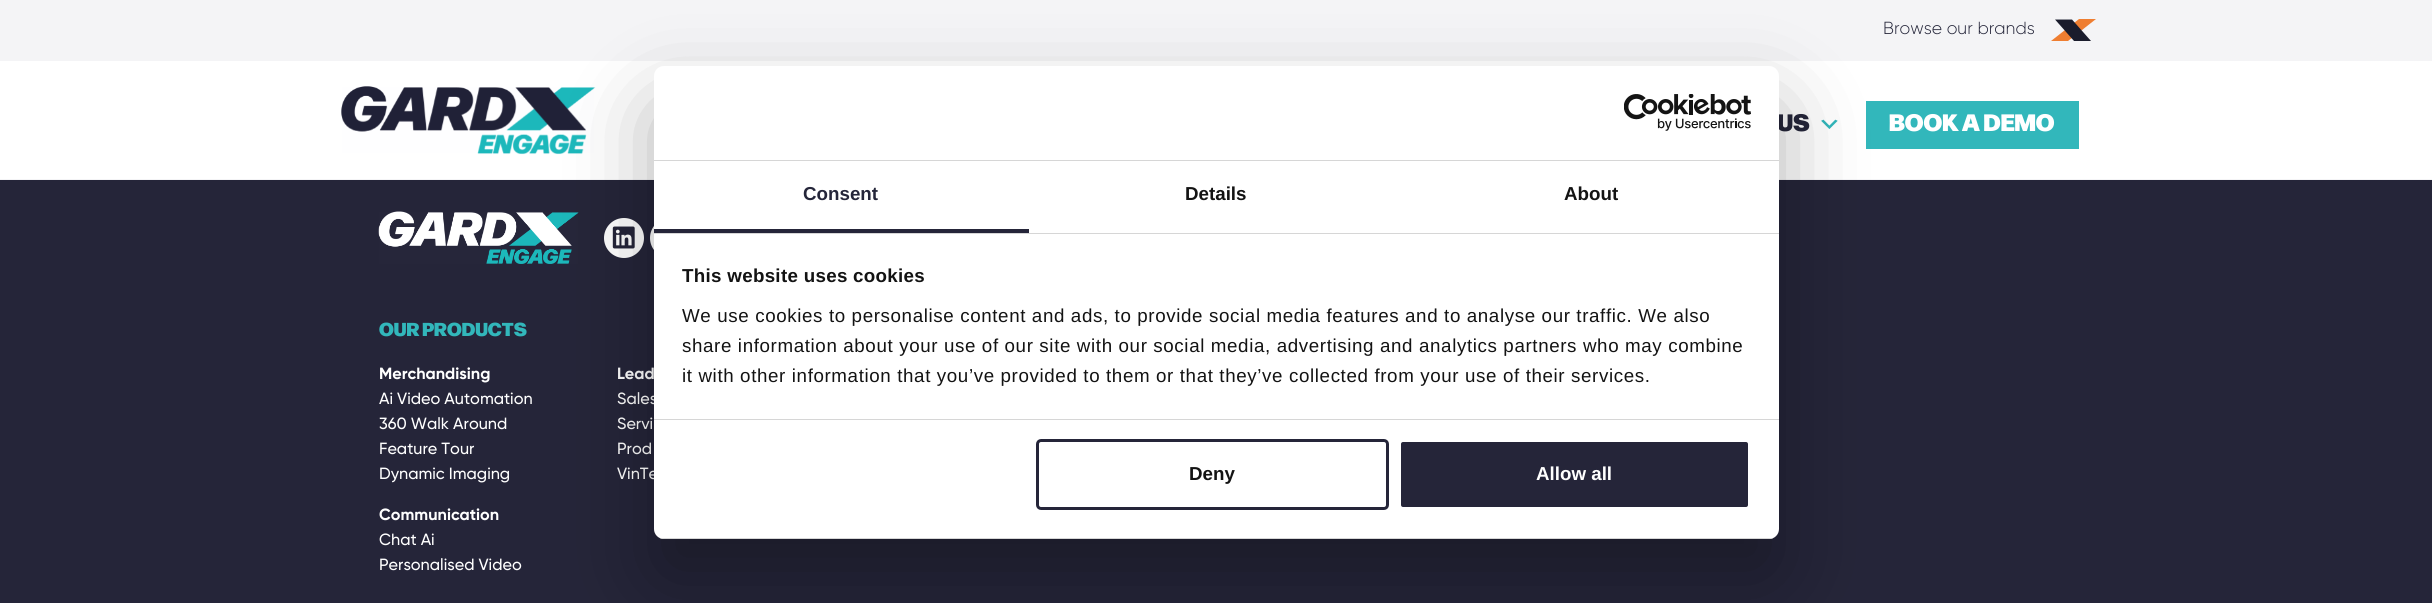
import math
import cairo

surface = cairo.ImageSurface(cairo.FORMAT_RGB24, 2432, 603)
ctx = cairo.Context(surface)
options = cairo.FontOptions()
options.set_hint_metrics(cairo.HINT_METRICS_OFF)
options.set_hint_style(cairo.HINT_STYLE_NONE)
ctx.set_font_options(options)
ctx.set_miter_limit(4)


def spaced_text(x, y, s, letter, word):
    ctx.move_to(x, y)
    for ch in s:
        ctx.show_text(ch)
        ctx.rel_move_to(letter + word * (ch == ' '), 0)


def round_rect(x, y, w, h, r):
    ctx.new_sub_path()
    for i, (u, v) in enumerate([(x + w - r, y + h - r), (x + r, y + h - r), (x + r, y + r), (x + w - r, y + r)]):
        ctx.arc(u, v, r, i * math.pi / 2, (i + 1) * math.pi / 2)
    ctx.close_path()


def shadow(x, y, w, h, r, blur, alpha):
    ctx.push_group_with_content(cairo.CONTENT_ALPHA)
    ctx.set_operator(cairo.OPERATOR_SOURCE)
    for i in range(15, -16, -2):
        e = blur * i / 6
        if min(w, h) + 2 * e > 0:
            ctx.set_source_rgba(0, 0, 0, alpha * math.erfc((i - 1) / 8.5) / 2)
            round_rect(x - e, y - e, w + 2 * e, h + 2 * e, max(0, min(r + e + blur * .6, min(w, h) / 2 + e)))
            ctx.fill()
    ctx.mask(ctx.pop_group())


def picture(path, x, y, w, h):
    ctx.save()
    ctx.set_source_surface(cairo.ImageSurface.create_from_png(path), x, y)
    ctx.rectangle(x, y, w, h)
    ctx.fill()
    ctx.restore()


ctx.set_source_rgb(0.145, 0.145, 0.224)
ctx.paint()
ctx.set_source_rgb(1, 1, 1)
ctx.rectangle(0, 61, 2432, 118)
ctx.fill()
ctx.set_source_rgb(0.957, 0.957, 0.961)
ctx.rectangle(0, 179, 2432, 1)
ctx.fill()
ctx.rectangle(0, 0, 2432, 61)
ctx.fill()
ctx.select_font_face("Gilroy Light")
ctx.set_font_size(17.5)
ctx.set_source_rgb(0.145, 0.149, 0.227)
ctx.move_to(1883, 34)
ctx.show_text("Browse our brands")
ctx.set_source_rgb(0.937, 0.494, 0.192)
ctx.new_path()
ctx.move_to(2068, 41)
ctx.line_to(2096, 19)
ctx.line_to(2079, 19)
ctx.line_to(2051, 41)
ctx.close_path()
ctx.fill()
ctx.set_source_rgb(0.102, 0.11, 0.173)
ctx.new_path()
ctx.move_to(2074, 41)
ctx.line_to(2055, 19.5)
ctx.line_to(2072, 19.5)
ctx.line_to(2091, 41)
ctx.close_path()
ctx.fill()
picture("img1.png", 341, 86, 255, 69)
ctx.select_font_face("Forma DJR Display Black")
ctx.set_font_size(23.75)
ctx.set_source_rgb(0.145, 0.149, 0.227)
ctx.move_to(1777, 131)
ctx.show_text("US")
picture("img2.png", 1821, 119, 17, 10)
ctx.set_source_rgb(0.196, 0.718, 0.733)
ctx.rectangle(1866, 101, 213, 48)
ctx.fill()
ctx.set_source_rgb(1, 1, 1)
ctx.move_to(1889, 131)
ctx.show_text("BOOK A DEMO")
picture("img3.png", 378, 211, 201, 53)
ctx.arc(624, 238, 20, 0, 2 * math.pi)
ctx.fill()
picture("img4.png", 612, 226, 23, 23)
ctx.arc(670, 238, 20, 0, 2 * math.pi)
ctx.fill()
ctx.set_font_size(18.75)
ctx.set_source_rgb(0.196, 0.718, 0.733)
ctx.move_to(379, 336)
ctx.show_text("OUR PRODUCTS")
ctx.select_font_face("Gilroy", cairo.FONT_SLANT_NORMAL, cairo.FONT_WEIGHT_BOLD)
ctx.set_font_size(16.25)
ctx.set_source_rgb(1, 1, 1)
ctx.move_to(379, 379)
ctx.show_text("Merchandising")
ctx.select_font_face("Gilroy Medium")
ctx.move_to(379, 404)
ctx.show_text("Ai Video Automation")
ctx.move_to(379, 429)
ctx.show_text("360 Walk Around")
ctx.move_to(379, 454)
ctx.show_text("Feature Tour")
ctx.move_to(379, 479)
ctx.show_text("Dynamic Imaging")
ctx.select_font_face("Gilroy", cairo.FONT_SLANT_NORMAL, cairo.FONT_WEIGHT_BOLD)
ctx.move_to(379, 520)
ctx.show_text("Communication")
ctx.select_font_face("Gilroy Medium")
ctx.move_to(379, 545)
ctx.show_text("Chat Ai")
ctx.move_to(379, 570)
ctx.show_text("Personalised Video")
ctx.select_font_face("Gilroy", cairo.FONT_SLANT_NORMAL, cairo.FONT_WEIGHT_BOLD)
ctx.move_to(617, 379)
ctx.show_text("Lead")
ctx.select_font_face("Gilroy Medium")
ctx.move_to(617, 404)
ctx.show_text("Sales")
ctx.move_to(617, 429)
ctx.show_text("Servi")
ctx.move_to(617, 454)
ctx.show_text("Prod")
ctx.move_to(617, 479)
ctx.show_text("VinTe")
ctx.set_source_rgb(0, 0, 0)
shadow(654, 106, 1125, 473, 10, 42.5, 0.3)
ctx.set_source_rgb(1, 1, 1)
round_rect(654, 66, 1125, 473, 10)
ctx.fill()
ctx.set_source_rgb(0.839, 0.839, 0.839)
ctx.rectangle(654, 160, 1125, 1)
ctx.fill()
picture("img5.png", 1624, 94, 127, 37)
ctx.rectangle(654, 233, 1125, 1)
ctx.fill()
ctx.set_source_rgb(0.145, 0.145, 0.224)
ctx.rectangle(654, 229, 375, 4)
ctx.fill()
ctx.select_font_face("Liberation Sans", cairo.FONT_SLANT_NORMAL, cairo.FONT_WEIGHT_BOLD)
ctx.set_font_size(18.75)
ctx.set_source_rgb(0.145, 0.149, 0.227)
ctx.move_to(803, 200)
ctx.show_text("Consent")
ctx.set_source_rgb(0.078, 0.078, 0.078)
ctx.move_to(1185, 200)
ctx.show_text("Details")
ctx.move_to(1564, 200)
ctx.show_text("About")
ctx.set_source_rgb(0.839, 0.839, 0.839)
ctx.rectangle(654, 419, 1125, 1)
ctx.fill()
ctx.set_source_rgb(0.078, 0.078, 0.078)
spaced_text(682, 282, "This website uses cookies", 0.3, 0)
ctx.select_font_face("Liberation Sans")
spaced_text(682, 322, "We use cookies to personalise content and ads, to provide social media features and to analyse our traffic. We also", 0.62, 0)
spaced_text(682, 352, "share information about your use of our site with our social media, advertising and analytics partners who may combine", 0.62, 0)
spaced_text(682, 382, "it with other information that you’ve provided to them or that they’ve collected from your use of their services.", 0.62, 0)
ctx.save()
round_rect(654, 66, 1125, 473, 10)
ctx.clip()
ctx.set_source_rgb(0.839, 0.839, 0.839)
ctx.rectangle(654, 538, 1125, 1)
ctx.fill()
ctx.restore()
round_rect(1037.5, 440.5, 350, 68, 3.5)
ctx.set_source_rgb(0.145, 0.145, 0.224)
ctx.set_line_width(3)
ctx.stroke()
ctx.select_font_face("Liberation Sans", cairo.FONT_SLANT_NORMAL, cairo.FONT_WEIGHT_BOLD)
ctx.set_source_rgb(0.078, 0.078, 0.078)
ctx.move_to(1189, 480)
ctx.show_text("Deny")
ctx.set_source_rgb(0.145, 0.145, 0.224)
round_rect(1399.5, 440.5, 350, 68, 3.5)
ctx.fill_preserve()
ctx.set_source_rgb(1, 1, 1)
ctx.stroke()
ctx.move_to(1536, 480)
ctx.show_text("Allow all")
surface.write_to_png("page.png")
